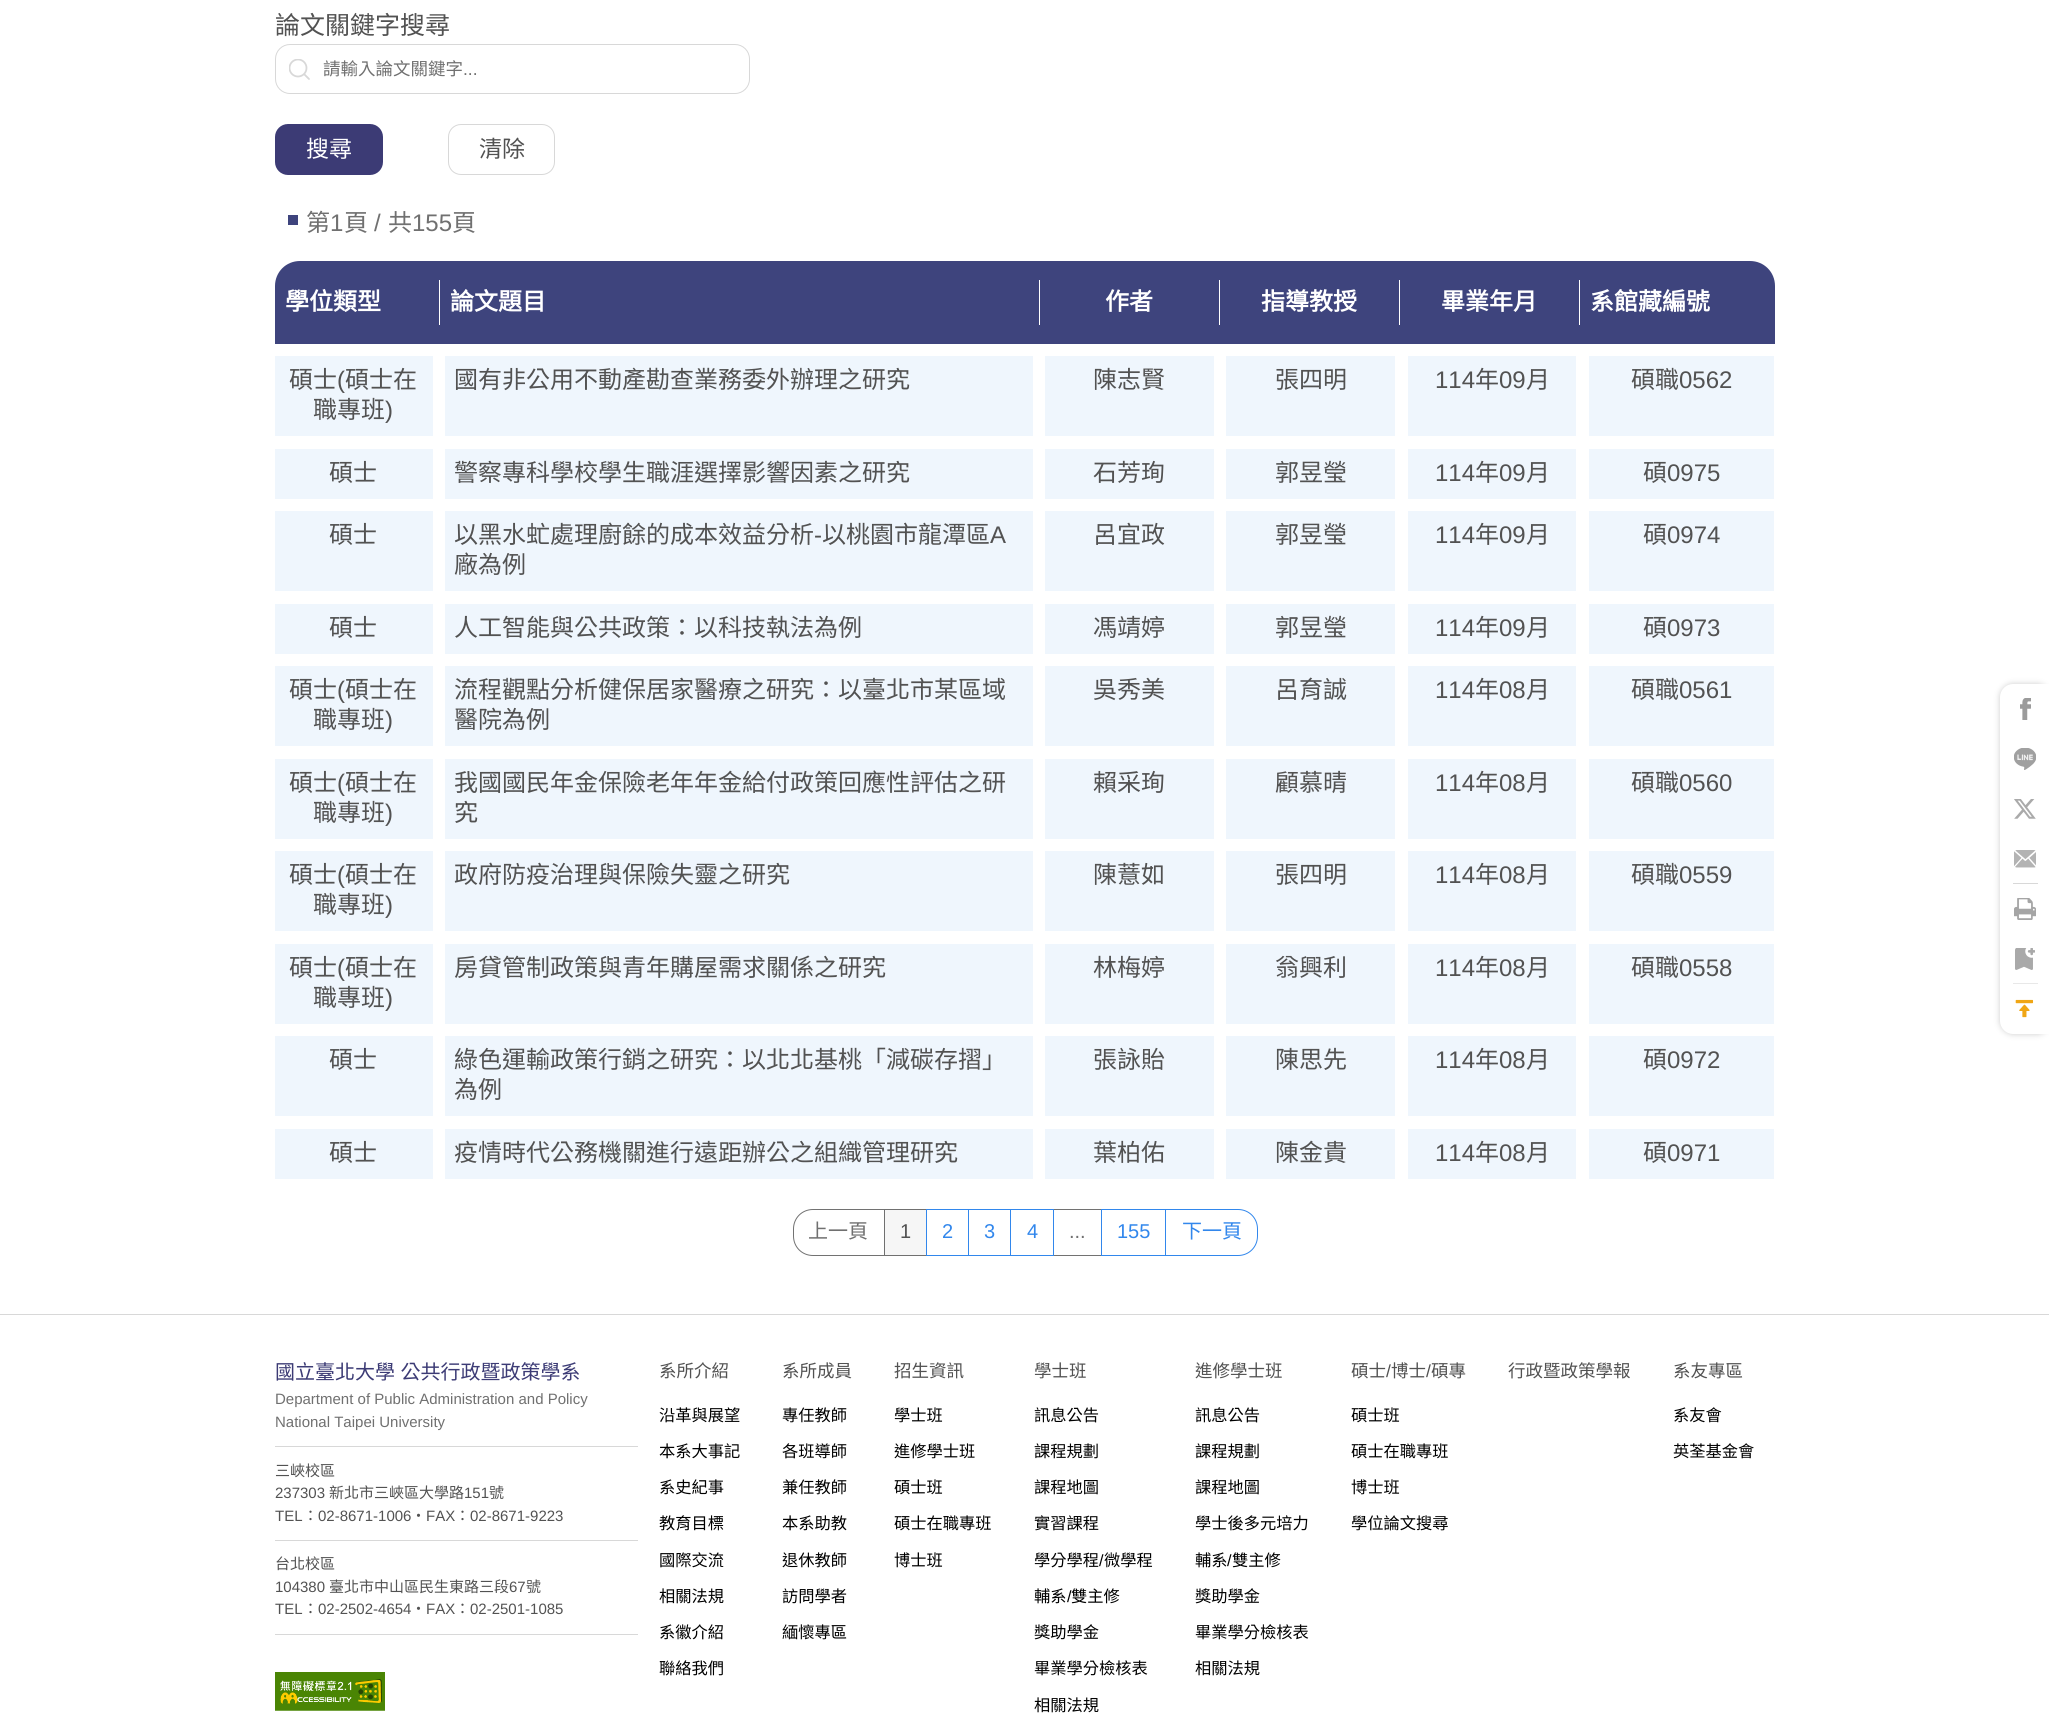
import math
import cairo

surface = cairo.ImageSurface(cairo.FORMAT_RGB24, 2049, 1717)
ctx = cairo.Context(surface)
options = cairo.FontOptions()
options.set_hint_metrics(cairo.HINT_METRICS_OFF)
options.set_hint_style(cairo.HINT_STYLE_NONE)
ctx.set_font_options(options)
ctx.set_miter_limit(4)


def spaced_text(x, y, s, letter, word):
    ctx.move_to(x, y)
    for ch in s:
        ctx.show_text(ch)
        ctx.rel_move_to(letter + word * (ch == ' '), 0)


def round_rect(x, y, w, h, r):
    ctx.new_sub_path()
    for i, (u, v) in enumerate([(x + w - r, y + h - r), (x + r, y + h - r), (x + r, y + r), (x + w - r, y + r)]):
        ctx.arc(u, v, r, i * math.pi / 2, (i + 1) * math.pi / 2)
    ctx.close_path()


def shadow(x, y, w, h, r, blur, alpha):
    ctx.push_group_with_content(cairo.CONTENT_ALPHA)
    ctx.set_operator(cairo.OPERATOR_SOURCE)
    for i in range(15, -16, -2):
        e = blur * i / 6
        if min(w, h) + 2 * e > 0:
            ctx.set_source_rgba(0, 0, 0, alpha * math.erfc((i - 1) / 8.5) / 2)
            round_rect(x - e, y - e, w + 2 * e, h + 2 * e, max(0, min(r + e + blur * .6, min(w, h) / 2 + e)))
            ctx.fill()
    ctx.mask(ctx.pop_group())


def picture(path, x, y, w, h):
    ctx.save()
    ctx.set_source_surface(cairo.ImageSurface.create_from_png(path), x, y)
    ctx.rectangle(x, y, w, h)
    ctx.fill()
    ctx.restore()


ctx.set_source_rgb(1, 1, 1)
ctx.paint()
ctx.select_font_face("Noto Sans CJK TC")
ctx.set_font_size(25)
ctx.set_source_rgb(0.322, 0.322, 0.322)
ctx.move_to(275, 34)
ctx.show_text("論文關鍵字搜尋")
ctx.save()
ctx.rectangle(289, 59, 21, 21)
ctx.clip()
ctx.arc(298, 68, 8.5, 0, 2 * math.pi)
ctx.set_source_rgb(0.847, 0.847, 0.847)
ctx.set_line_width(1.8)
ctx.stroke()
ctx.restore()
ctx.new_path()
ctx.move_to(309, 79)
ctx.line_to(304.5, 74.5)
ctx.set_source_rgb(0.847, 0.847, 0.847)
ctx.set_line_width(1.8)
ctx.set_line_cap(cairo.LINE_CAP_ROUND)
ctx.stroke()
round_rect(275.5, 44.5, 474, 49, 14.5)
ctx.set_line_width(1)
ctx.set_line_cap(cairo.LINE_CAP_BUTT)
ctx.stroke()
ctx.set_font_size(17.5)
ctx.set_source_rgb(0.439, 0.439, 0.439)
ctx.move_to(323, 75)
ctx.show_text("請輸入論文關鍵字")
ctx.select_font_face("Liberation Sans")
ctx.move_to(463, 75)
ctx.show_text("...")
ctx.set_source_rgb(0.235, 0.231, 0.459)
round_rect(275, 124, 108, 51, 13)
ctx.fill()
ctx.select_font_face("Noto Sans CJK TC")
ctx.set_font_size(23)
ctx.set_source_rgb(1, 1, 1)
ctx.move_to(306, 157)
ctx.show_text("搜尋")
round_rect(448.5, 124.5, 106, 50, 12.5)
ctx.set_source_rgb(0.847, 0.847, 0.847)
ctx.stroke()
ctx.set_source_rgb(0.322, 0.322, 0.322)
ctx.move_to(479, 157)
ctx.show_text("清除")
ctx.set_source_rgb(0.243, 0.267, 0.49)
ctx.rectangle(288, 215, 10, 10)
ctx.fill()
ctx.set_font_size(24)
ctx.set_source_rgb(0.439, 0.439, 0.439)
ctx.move_to(306, 231)
ctx.show_text("第")
ctx.select_font_face("Liberation Sans")
ctx.move_to(330, 231)
ctx.show_text("1")
ctx.select_font_face("Noto Sans CJK TC")
ctx.move_to(344, 231)
ctx.show_text("頁")
ctx.select_font_face("Liberation Sans")
ctx.move_to(374, 231)
ctx.show_text("/")
ctx.select_font_face("Noto Sans CJK TC")
ctx.move_to(388, 231)
ctx.show_text("共")
ctx.select_font_face("Liberation Sans")
ctx.move_to(412, 231)
ctx.show_text("155")
ctx.select_font_face("Noto Sans CJK TC")
ctx.move_to(452, 231)
ctx.show_text("頁")
ctx.set_source_rgb(0.243, 0.267, 0.49)
ctx.new_path()
ctx.move_to(300, 261)
ctx.line_to(1750, 261)
ctx.curve_to(1764, 261, 1775, 272, 1775, 286)
ctx.line_to(1775, 344)
ctx.line_to(275, 344)
ctx.line_to(275, 286)
ctx.curve_to(275, 272, 286, 261, 300, 261)
ctx.close_path()
ctx.fill()
ctx.set_source_rgb(1, 1, 1)
ctx.rectangle(439, 280, 1, 45)
ctx.fill()
ctx.select_font_face("Noto Sans CJK TC", cairo.FONT_SLANT_NORMAL, cairo.FONT_WEIGHT_BOLD)
ctx.move_to(285, 310)
ctx.show_text("學位類型")
ctx.rectangle(1039, 280, 1, 45)
ctx.fill()
ctx.move_to(450, 310)
ctx.show_text("論文題目")
ctx.rectangle(1219, 280, 1, 45)
ctx.fill()
ctx.move_to(1105, 310)
ctx.show_text("作者")
ctx.rectangle(1399, 280, 1, 45)
ctx.fill()
ctx.move_to(1261, 310)
ctx.show_text("指導教授")
ctx.rectangle(1579, 280, 1, 45)
ctx.fill()
ctx.move_to(1441, 310)
ctx.show_text("畢業年月")
ctx.move_to(1590, 310)
ctx.show_text("系館藏編號")
ctx.set_source_rgb(0.937, 0.961, 0.992)
ctx.rectangle(275, 356, 158, 80)
ctx.fill()
ctx.select_font_face("Noto Sans CJK TC")
ctx.set_source_rgb(0.322, 0.322, 0.322)
ctx.move_to(289, 388)
ctx.show_text("碩士")
ctx.select_font_face("Liberation Sans")
ctx.move_to(337, 388)
ctx.show_text("(")
ctx.select_font_face("Noto Sans CJK TC")
ctx.move_to(345, 388)
ctx.show_text("碩士在")
ctx.move_to(313, 418)
ctx.show_text("職專班")
ctx.select_font_face("Liberation Sans")
ctx.move_to(385, 418)
ctx.show_text(")")
ctx.set_source_rgb(0.937, 0.961, 0.992)
ctx.rectangle(445, 356, 588, 80)
ctx.fill()
ctx.select_font_face("Noto Sans CJK TC")
ctx.set_source_rgb(0.322, 0.322, 0.322)
ctx.move_to(454, 388)
ctx.show_text("國有非公用不動產勘查業務委外辦理之研究")
ctx.set_source_rgb(0.937, 0.961, 0.992)
ctx.rectangle(1045, 356, 169, 80)
ctx.fill()
ctx.set_source_rgb(0.322, 0.322, 0.322)
ctx.move_to(1093, 388)
ctx.show_text("陳志賢")
ctx.set_source_rgb(0.937, 0.961, 0.992)
ctx.rectangle(1226, 356, 169, 80)
ctx.fill()
ctx.set_source_rgb(0.322, 0.322, 0.322)
ctx.move_to(1275, 388)
ctx.show_text("張四明")
ctx.set_source_rgb(0.937, 0.961, 0.992)
ctx.rectangle(1408, 356, 168, 80)
ctx.fill()
ctx.select_font_face("Liberation Sans")
ctx.set_source_rgb(0.322, 0.322, 0.322)
ctx.move_to(1435, 388)
ctx.show_text("114")
ctx.select_font_face("Noto Sans CJK TC")
ctx.move_to(1475, 388)
ctx.show_text("年")
ctx.select_font_face("Liberation Sans")
ctx.move_to(1499, 388)
ctx.show_text("09")
ctx.select_font_face("Noto Sans CJK TC")
ctx.move_to(1526, 388)
ctx.show_text("月")
ctx.set_source_rgb(0.937, 0.961, 0.992)
ctx.rectangle(1589, 356, 185, 80)
ctx.fill()
ctx.set_source_rgb(0.322, 0.322, 0.322)
ctx.move_to(1631, 388)
ctx.show_text("碩職")
ctx.select_font_face("Liberation Sans")
ctx.move_to(1679, 388)
ctx.show_text("0562")
ctx.set_source_rgb(0.937, 0.961, 0.992)
ctx.rectangle(275, 449, 158, 50)
ctx.fill()
ctx.select_font_face("Noto Sans CJK TC")
ctx.set_source_rgb(0.322, 0.322, 0.322)
ctx.move_to(329, 481)
ctx.show_text("碩士")
ctx.set_source_rgb(0.937, 0.961, 0.992)
ctx.rectangle(445, 449, 588, 50)
ctx.fill()
ctx.set_source_rgb(0.322, 0.322, 0.322)
ctx.move_to(454, 481)
ctx.show_text("警察專科學校學生職涯選擇影響因素之研究")
ctx.set_source_rgb(0.937, 0.961, 0.992)
ctx.rectangle(1045, 449, 169, 50)
ctx.fill()
ctx.set_source_rgb(0.322, 0.322, 0.322)
ctx.move_to(1093, 481)
ctx.show_text("石芳珣")
ctx.set_source_rgb(0.937, 0.961, 0.992)
ctx.rectangle(1226, 449, 169, 50)
ctx.fill()
ctx.set_source_rgb(0.322, 0.322, 0.322)
ctx.move_to(1275, 481)
ctx.show_text("郭昱瑩")
ctx.set_source_rgb(0.937, 0.961, 0.992)
ctx.rectangle(1408, 449, 168, 50)
ctx.fill()
ctx.select_font_face("Liberation Sans")
ctx.set_source_rgb(0.322, 0.322, 0.322)
ctx.move_to(1435, 481)
ctx.show_text("114")
ctx.select_font_face("Noto Sans CJK TC")
ctx.move_to(1475, 481)
ctx.show_text("年")
ctx.select_font_face("Liberation Sans")
ctx.move_to(1499, 481)
ctx.show_text("09")
ctx.select_font_face("Noto Sans CJK TC")
ctx.move_to(1526, 481)
ctx.show_text("月")
ctx.set_source_rgb(0.937, 0.961, 0.992)
ctx.rectangle(1589, 449, 185, 50)
ctx.fill()
ctx.set_source_rgb(0.322, 0.322, 0.322)
ctx.move_to(1643, 481)
ctx.show_text("碩")
ctx.select_font_face("Liberation Sans")
ctx.move_to(1667, 481)
ctx.show_text("0975")
ctx.set_source_rgb(0.937, 0.961, 0.992)
ctx.rectangle(275, 511, 158, 80)
ctx.fill()
ctx.select_font_face("Noto Sans CJK TC")
ctx.set_source_rgb(0.322, 0.322, 0.322)
ctx.move_to(329, 543)
ctx.show_text("碩士")
ctx.set_source_rgb(0.937, 0.961, 0.992)
ctx.rectangle(445, 511, 588, 80)
ctx.fill()
ctx.set_source_rgb(0.322, 0.322, 0.322)
ctx.move_to(454, 543)
ctx.show_text("以黑水虻處理廚餘的成本效益分析")
ctx.select_font_face("Liberation Sans")
ctx.move_to(814, 543)
ctx.show_text("-")
ctx.select_font_face("Noto Sans CJK TC")
ctx.move_to(822, 543)
ctx.show_text("以桃園市龍潭區")
ctx.select_font_face("Liberation Sans")
ctx.move_to(990, 543)
ctx.show_text("A")
ctx.select_font_face("Noto Sans CJK TC")
ctx.move_to(454, 573)
ctx.show_text("廠為例")
ctx.set_source_rgb(0.937, 0.961, 0.992)
ctx.rectangle(1045, 511, 169, 80)
ctx.fill()
ctx.set_source_rgb(0.322, 0.322, 0.322)
ctx.move_to(1093, 543)
ctx.show_text("呂宜政")
ctx.set_source_rgb(0.937, 0.961, 0.992)
ctx.rectangle(1226, 511, 169, 80)
ctx.fill()
ctx.set_source_rgb(0.322, 0.322, 0.322)
ctx.move_to(1275, 543)
ctx.show_text("郭昱瑩")
ctx.set_source_rgb(0.937, 0.961, 0.992)
ctx.rectangle(1408, 511, 168, 80)
ctx.fill()
ctx.select_font_face("Liberation Sans")
ctx.set_source_rgb(0.322, 0.322, 0.322)
ctx.move_to(1435, 543)
ctx.show_text("114")
ctx.select_font_face("Noto Sans CJK TC")
ctx.move_to(1475, 543)
ctx.show_text("年")
ctx.select_font_face("Liberation Sans")
ctx.move_to(1499, 543)
ctx.show_text("09")
ctx.select_font_face("Noto Sans CJK TC")
ctx.move_to(1526, 543)
ctx.show_text("月")
ctx.set_source_rgb(0.937, 0.961, 0.992)
ctx.rectangle(1589, 511, 185, 80)
ctx.fill()
ctx.set_source_rgb(0.322, 0.322, 0.322)
ctx.move_to(1643, 543)
ctx.show_text("碩")
ctx.select_font_face("Liberation Sans")
ctx.move_to(1667, 543)
ctx.show_text("0974")
ctx.set_source_rgb(0.937, 0.961, 0.992)
ctx.rectangle(275, 604, 158, 50)
ctx.fill()
ctx.select_font_face("Noto Sans CJK TC")
ctx.set_source_rgb(0.322, 0.322, 0.322)
ctx.move_to(329, 636)
ctx.show_text("碩士")
ctx.set_source_rgb(0.937, 0.961, 0.992)
ctx.rectangle(445, 604, 588, 50)
ctx.fill()
ctx.set_source_rgb(0.322, 0.322, 0.322)
ctx.move_to(454, 636)
ctx.show_text("人工智能與公共政策：以科技執法為例")
ctx.set_source_rgb(0.937, 0.961, 0.992)
ctx.rectangle(1045, 604, 169, 50)
ctx.fill()
ctx.set_source_rgb(0.322, 0.322, 0.322)
ctx.move_to(1093, 636)
ctx.show_text("馮靖婷")
ctx.set_source_rgb(0.937, 0.961, 0.992)
ctx.rectangle(1226, 604, 169, 50)
ctx.fill()
ctx.set_source_rgb(0.322, 0.322, 0.322)
ctx.move_to(1275, 636)
ctx.show_text("郭昱瑩")
ctx.set_source_rgb(0.937, 0.961, 0.992)
ctx.rectangle(1408, 604, 168, 50)
ctx.fill()
ctx.select_font_face("Liberation Sans")
ctx.set_source_rgb(0.322, 0.322, 0.322)
ctx.move_to(1435, 636)
ctx.show_text("114")
ctx.select_font_face("Noto Sans CJK TC")
ctx.move_to(1475, 636)
ctx.show_text("年")
ctx.select_font_face("Liberation Sans")
ctx.move_to(1499, 636)
ctx.show_text("09")
ctx.select_font_face("Noto Sans CJK TC")
ctx.move_to(1526, 636)
ctx.show_text("月")
ctx.set_source_rgb(0.937, 0.961, 0.992)
ctx.rectangle(1589, 604, 185, 50)
ctx.fill()
ctx.set_source_rgb(0.322, 0.322, 0.322)
ctx.move_to(1643, 636)
ctx.show_text("碩")
ctx.select_font_face("Liberation Sans")
ctx.move_to(1667, 636)
ctx.show_text("0973")
ctx.set_source_rgb(0.937, 0.961, 0.992)
ctx.rectangle(275, 666, 158, 80)
ctx.fill()
ctx.select_font_face("Noto Sans CJK TC")
ctx.set_source_rgb(0.322, 0.322, 0.322)
ctx.move_to(289, 698)
ctx.show_text("碩士")
ctx.select_font_face("Liberation Sans")
ctx.move_to(337, 698)
ctx.show_text("(")
ctx.select_font_face("Noto Sans CJK TC")
ctx.move_to(345, 698)
ctx.show_text("碩士在")
ctx.move_to(313, 728)
ctx.show_text("職專班")
ctx.select_font_face("Liberation Sans")
ctx.move_to(385, 728)
ctx.show_text(")")
ctx.set_source_rgb(0.937, 0.961, 0.992)
ctx.rectangle(445, 666, 588, 80)
ctx.fill()
ctx.select_font_face("Noto Sans CJK TC")
ctx.set_source_rgb(0.322, 0.322, 0.322)
ctx.move_to(454, 698)
ctx.show_text("流程觀點分析健保居家醫療之研究：以臺北市某區域")
ctx.move_to(454, 728)
ctx.show_text("醫院為例")
ctx.set_source_rgb(0.937, 0.961, 0.992)
ctx.rectangle(1045, 666, 169, 80)
ctx.fill()
ctx.set_source_rgb(0.322, 0.322, 0.322)
ctx.move_to(1093, 698)
ctx.show_text("吳秀美")
ctx.set_source_rgb(0.937, 0.961, 0.992)
ctx.rectangle(1226, 666, 169, 80)
ctx.fill()
ctx.set_source_rgb(0.322, 0.322, 0.322)
ctx.move_to(1275, 698)
ctx.show_text("呂育誠")
ctx.set_source_rgb(0.937, 0.961, 0.992)
ctx.rectangle(1408, 666, 168, 80)
ctx.fill()
ctx.select_font_face("Liberation Sans")
ctx.set_source_rgb(0.322, 0.322, 0.322)
ctx.move_to(1435, 698)
ctx.show_text("114")
ctx.select_font_face("Noto Sans CJK TC")
ctx.move_to(1475, 698)
ctx.show_text("年")
ctx.select_font_face("Liberation Sans")
ctx.move_to(1499, 698)
ctx.show_text("08")
ctx.select_font_face("Noto Sans CJK TC")
ctx.move_to(1526, 698)
ctx.show_text("月")
ctx.set_source_rgb(0.937, 0.961, 0.992)
ctx.rectangle(1589, 666, 185, 80)
ctx.fill()
ctx.set_source_rgb(0.322, 0.322, 0.322)
ctx.move_to(1631, 698)
ctx.show_text("碩職")
ctx.select_font_face("Liberation Sans")
ctx.move_to(1679, 698)
ctx.show_text("0561")
ctx.set_source_rgb(0.937, 0.961, 0.992)
ctx.rectangle(275, 759, 158, 80)
ctx.fill()
ctx.select_font_face("Noto Sans CJK TC")
ctx.set_source_rgb(0.322, 0.322, 0.322)
ctx.move_to(289, 791)
ctx.show_text("碩士")
ctx.select_font_face("Liberation Sans")
ctx.move_to(337, 791)
ctx.show_text("(")
ctx.select_font_face("Noto Sans CJK TC")
ctx.move_to(345, 791)
ctx.show_text("碩士在")
ctx.move_to(313, 821)
ctx.show_text("職專班")
ctx.select_font_face("Liberation Sans")
ctx.move_to(385, 821)
ctx.show_text(")")
ctx.set_source_rgb(0.937, 0.961, 0.992)
ctx.rectangle(445, 759, 588, 80)
ctx.fill()
ctx.select_font_face("Noto Sans CJK TC")
ctx.set_source_rgb(0.322, 0.322, 0.322)
ctx.move_to(454, 791)
ctx.show_text("我國國民年金保險老年年金給付政策回應性評估之研")
ctx.move_to(454, 821)
ctx.show_text("究")
ctx.set_source_rgb(0.937, 0.961, 0.992)
ctx.rectangle(1045, 759, 169, 80)
ctx.fill()
ctx.set_source_rgb(0.322, 0.322, 0.322)
ctx.move_to(1093, 791)
ctx.show_text("賴采珣")
ctx.set_source_rgb(0.937, 0.961, 0.992)
ctx.rectangle(1226, 759, 169, 80)
ctx.fill()
ctx.set_source_rgb(0.322, 0.322, 0.322)
ctx.move_to(1275, 791)
ctx.show_text("顧慕晴")
ctx.set_source_rgb(0.937, 0.961, 0.992)
ctx.rectangle(1408, 759, 168, 80)
ctx.fill()
ctx.select_font_face("Liberation Sans")
ctx.set_source_rgb(0.322, 0.322, 0.322)
ctx.move_to(1435, 791)
ctx.show_text("114")
ctx.select_font_face("Noto Sans CJK TC")
ctx.move_to(1475, 791)
ctx.show_text("年")
ctx.select_font_face("Liberation Sans")
ctx.move_to(1499, 791)
ctx.show_text("08")
ctx.select_font_face("Noto Sans CJK TC")
ctx.move_to(1526, 791)
ctx.show_text("月")
ctx.set_source_rgb(0.937, 0.961, 0.992)
ctx.rectangle(1589, 759, 185, 80)
ctx.fill()
ctx.set_source_rgb(0.322, 0.322, 0.322)
ctx.move_to(1631, 791)
ctx.show_text("碩職")
ctx.select_font_face("Liberation Sans")
ctx.move_to(1679, 791)
ctx.show_text("0560")
ctx.set_source_rgb(0.937, 0.961, 0.992)
ctx.rectangle(275, 851, 158, 80)
ctx.fill()
ctx.select_font_face("Noto Sans CJK TC")
ctx.set_source_rgb(0.322, 0.322, 0.322)
ctx.move_to(289, 883)
ctx.show_text("碩士")
ctx.select_font_face("Liberation Sans")
ctx.move_to(337, 883)
ctx.show_text("(")
ctx.select_font_face("Noto Sans CJK TC")
ctx.move_to(345, 883)
ctx.show_text("碩士在")
ctx.move_to(313, 913)
ctx.show_text("職專班")
ctx.select_font_face("Liberation Sans")
ctx.move_to(385, 913)
ctx.show_text(")")
ctx.set_source_rgb(0.937, 0.961, 0.992)
ctx.rectangle(445, 851, 588, 80)
ctx.fill()
ctx.select_font_face("Noto Sans CJK TC")
ctx.set_source_rgb(0.322, 0.322, 0.322)
ctx.move_to(454, 883)
ctx.show_text("政府防疫治理與保險失靈之研究")
ctx.set_source_rgb(0.937, 0.961, 0.992)
ctx.rectangle(1045, 851, 169, 80)
ctx.fill()
ctx.set_source_rgb(0.322, 0.322, 0.322)
ctx.move_to(1093, 883)
ctx.show_text("陳薏如")
ctx.set_source_rgb(0.937, 0.961, 0.992)
ctx.rectangle(1226, 851, 169, 80)
ctx.fill()
ctx.set_source_rgb(0.322, 0.322, 0.322)
ctx.move_to(1275, 883)
ctx.show_text("張四明")
ctx.set_source_rgb(0.937, 0.961, 0.992)
ctx.rectangle(1408, 851, 168, 80)
ctx.fill()
ctx.select_font_face("Liberation Sans")
ctx.set_source_rgb(0.322, 0.322, 0.322)
ctx.move_to(1435, 883)
ctx.show_text("114")
ctx.select_font_face("Noto Sans CJK TC")
ctx.move_to(1475, 883)
ctx.show_text("年")
ctx.select_font_face("Liberation Sans")
ctx.move_to(1499, 883)
ctx.show_text("08")
ctx.select_font_face("Noto Sans CJK TC")
ctx.move_to(1526, 883)
ctx.show_text("月")
ctx.set_source_rgb(0.937, 0.961, 0.992)
ctx.rectangle(1589, 851, 185, 80)
ctx.fill()
ctx.set_source_rgb(0.322, 0.322, 0.322)
ctx.move_to(1631, 883)
ctx.show_text("碩職")
ctx.select_font_face("Liberation Sans")
ctx.move_to(1679, 883)
ctx.show_text("0559")
ctx.set_source_rgb(0.937, 0.961, 0.992)
ctx.rectangle(275, 944, 158, 80)
ctx.fill()
ctx.select_font_face("Noto Sans CJK TC")
ctx.set_source_rgb(0.322, 0.322, 0.322)
ctx.move_to(289, 976)
ctx.show_text("碩士")
ctx.select_font_face("Liberation Sans")
ctx.move_to(337, 976)
ctx.show_text("(")
ctx.select_font_face("Noto Sans CJK TC")
ctx.move_to(345, 976)
ctx.show_text("碩士在")
ctx.move_to(313, 1006)
ctx.show_text("職專班")
ctx.select_font_face("Liberation Sans")
ctx.move_to(385, 1006)
ctx.show_text(")")
ctx.set_source_rgb(0.937, 0.961, 0.992)
ctx.rectangle(445, 944, 588, 80)
ctx.fill()
ctx.select_font_face("Noto Sans CJK TC")
ctx.set_source_rgb(0.322, 0.322, 0.322)
ctx.move_to(454, 976)
ctx.show_text("房貸管制政策與青年購屋需求關係之研究")
ctx.set_source_rgb(0.937, 0.961, 0.992)
ctx.rectangle(1045, 944, 169, 80)
ctx.fill()
ctx.set_source_rgb(0.322, 0.322, 0.322)
ctx.move_to(1093, 976)
ctx.show_text("林梅婷")
ctx.set_source_rgb(0.937, 0.961, 0.992)
ctx.rectangle(1226, 944, 169, 80)
ctx.fill()
ctx.set_source_rgb(0.322, 0.322, 0.322)
ctx.move_to(1275, 976)
ctx.show_text("翁興利")
ctx.set_source_rgb(0.937, 0.961, 0.992)
ctx.rectangle(1408, 944, 168, 80)
ctx.fill()
ctx.select_font_face("Liberation Sans")
ctx.set_source_rgb(0.322, 0.322, 0.322)
ctx.move_to(1435, 976)
ctx.show_text("114")
ctx.select_font_face("Noto Sans CJK TC")
ctx.move_to(1475, 976)
ctx.show_text("年")
ctx.select_font_face("Liberation Sans")
ctx.move_to(1499, 976)
ctx.show_text("08")
ctx.select_font_face("Noto Sans CJK TC")
ctx.move_to(1526, 976)
ctx.show_text("月")
ctx.set_source_rgb(0.937, 0.961, 0.992)
ctx.rectangle(1589, 944, 185, 80)
ctx.fill()
ctx.set_source_rgb(0.322, 0.322, 0.322)
ctx.move_to(1631, 976)
ctx.show_text("碩職")
ctx.select_font_face("Liberation Sans")
ctx.move_to(1679, 976)
ctx.show_text("0558")
ctx.set_source_rgb(0.937, 0.961, 0.992)
ctx.rectangle(275, 1036, 158, 80)
ctx.fill()
ctx.select_font_face("Noto Sans CJK TC")
ctx.set_source_rgb(0.322, 0.322, 0.322)
ctx.move_to(329, 1068)
ctx.show_text("碩士")
ctx.set_source_rgb(0.937, 0.961, 0.992)
ctx.rectangle(445, 1036, 588, 80)
ctx.fill()
ctx.set_source_rgb(0.322, 0.322, 0.322)
ctx.move_to(454, 1068)
ctx.show_text("綠色運輸政策行銷之研究：以北北基桃「減碳存摺」")
ctx.move_to(454, 1098)
ctx.show_text("為例")
ctx.set_source_rgb(0.937, 0.961, 0.992)
ctx.rectangle(1045, 1036, 169, 80)
ctx.fill()
ctx.set_source_rgb(0.322, 0.322, 0.322)
ctx.move_to(1093, 1068)
ctx.show_text("張詠貽")
ctx.set_source_rgb(0.937, 0.961, 0.992)
ctx.rectangle(1226, 1036, 169, 80)
ctx.fill()
ctx.set_source_rgb(0.322, 0.322, 0.322)
ctx.move_to(1275, 1068)
ctx.show_text("陳思先")
ctx.set_source_rgb(0.937, 0.961, 0.992)
ctx.rectangle(1408, 1036, 168, 80)
ctx.fill()
ctx.select_font_face("Liberation Sans")
ctx.set_source_rgb(0.322, 0.322, 0.322)
ctx.move_to(1435, 1068)
ctx.show_text("114")
ctx.select_font_face("Noto Sans CJK TC")
ctx.move_to(1475, 1068)
ctx.show_text("年")
ctx.select_font_face("Liberation Sans")
ctx.move_to(1499, 1068)
ctx.show_text("08")
ctx.select_font_face("Noto Sans CJK TC")
ctx.move_to(1526, 1068)
ctx.show_text("月")
ctx.set_source_rgb(0.937, 0.961, 0.992)
ctx.rectangle(1589, 1036, 185, 80)
ctx.fill()
ctx.set_source_rgb(0.322, 0.322, 0.322)
ctx.move_to(1643, 1068)
ctx.show_text("碩")
ctx.select_font_face("Liberation Sans")
ctx.move_to(1667, 1068)
ctx.show_text("0972")
ctx.set_source_rgb(0.937, 0.961, 0.992)
ctx.rectangle(275, 1129, 158, 50)
ctx.fill()
ctx.select_font_face("Noto Sans CJK TC")
ctx.set_source_rgb(0.322, 0.322, 0.322)
ctx.move_to(329, 1161)
ctx.show_text("碩士")
ctx.set_source_rgb(0.937, 0.961, 0.992)
ctx.rectangle(445, 1129, 588, 50)
ctx.fill()
ctx.set_source_rgb(0.322, 0.322, 0.322)
ctx.move_to(454, 1161)
ctx.show_text("疫情時代公務機關進行遠距辦公之組織管理研究")
ctx.set_source_rgb(0.937, 0.961, 0.992)
ctx.rectangle(1045, 1129, 169, 50)
ctx.fill()
ctx.set_source_rgb(0.322, 0.322, 0.322)
ctx.move_to(1093, 1161)
ctx.show_text("葉柏佑")
ctx.set_source_rgb(0.937, 0.961, 0.992)
ctx.rectangle(1226, 1129, 169, 50)
ctx.fill()
ctx.set_source_rgb(0.322, 0.322, 0.322)
ctx.move_to(1275, 1161)
ctx.show_text("陳金貴")
ctx.set_source_rgb(0.937, 0.961, 0.992)
ctx.rectangle(1408, 1129, 168, 50)
ctx.fill()
ctx.select_font_face("Liberation Sans")
ctx.set_source_rgb(0.322, 0.322, 0.322)
ctx.move_to(1435, 1161)
ctx.show_text("114")
ctx.select_font_face("Noto Sans CJK TC")
ctx.move_to(1475, 1161)
ctx.show_text("年")
ctx.select_font_face("Liberation Sans")
ctx.move_to(1499, 1161)
ctx.show_text("08")
ctx.select_font_face("Noto Sans CJK TC")
ctx.move_to(1526, 1161)
ctx.show_text("月")
ctx.set_source_rgb(0.937, 0.961, 0.992)
ctx.rectangle(1589, 1129, 185, 50)
ctx.fill()
ctx.set_source_rgb(0.322, 0.322, 0.322)
ctx.move_to(1643, 1161)
ctx.show_text("碩")
ctx.select_font_face("Liberation Sans")
ctx.move_to(1667, 1161)
ctx.show_text("0971")
ctx.new_path()
ctx.move_to(813, 1209.5)
ctx.line_to(884.5, 1209.5)
ctx.line_to(884.5, 1255.5)
ctx.line_to(813, 1255.5)
ctx.curve_to(802, 1255.5, 793.5, 1247, 793.5, 1236)
ctx.line_to(793.5, 1229)
ctx.curve_to(793.5, 1218, 802, 1209.5, 813, 1209.5)
ctx.close_path()
ctx.set_source_rgb(0.447, 0.447, 0.447)
ctx.stroke()
ctx.select_font_face("Noto Sans CJK TC")
ctx.set_font_size(20)
ctx.set_source_rgb(0.439, 0.439, 0.439)
ctx.move_to(808, 1238)
ctx.show_text("上一頁")
ctx.set_source_rgb(0.961, 0.961, 0.961)
ctx.rectangle(885, 1210, 41, 45)
ctx.fill()
ctx.rectangle(884.5, 1209.5, 43, 46)
ctx.set_source_rgb(0.439, 0.439, 0.439)
ctx.stroke()
ctx.select_font_face("Liberation Sans")
ctx.set_source_rgb(0.322, 0.322, 0.322)
ctx.move_to(900, 1238)
ctx.show_text("1")
ctx.set_source_rgb(1, 1, 1)
ctx.rectangle(927, 1210, 1, 45)
ctx.fill()
ctx.rectangle(926.5, 1209.5, 42, 46)
ctx.set_source_rgb(0.196, 0.529, 0.925)
ctx.stroke()
ctx.move_to(942, 1238)
ctx.show_text("2")
ctx.rectangle(968.5, 1209.5, 42, 46)
ctx.stroke()
ctx.move_to(984, 1238)
ctx.show_text("3")
ctx.rectangle(1053.5, 1209.5, 49, 46)
ctx.set_source_rgb(0.447, 0.447, 0.447)
ctx.stroke()
ctx.rectangle(1010.5, 1209.5, 43, 46)
ctx.set_source_rgb(0.196, 0.529, 0.925)
ctx.stroke()
ctx.move_to(1027, 1238)
ctx.show_text("4")
ctx.set_source_rgb(0.439, 0.439, 0.439)
ctx.move_to(1069, 1238)
ctx.show_text("...")
ctx.set_source_rgb(1, 1, 1)
ctx.rectangle(1102, 1210, 1, 45)
ctx.fill()
ctx.rectangle(1101.5, 1209.5, 64, 46)
ctx.set_source_rgb(0.196, 0.529, 0.925)
ctx.stroke()
ctx.move_to(1117, 1238)
ctx.show_text("155")
ctx.set_source_rgb(1, 1, 1)
ctx.new_path()
ctx.move_to(1165.5, 1209.5)
ctx.line_to(1238, 1209.5)
ctx.curve_to(1249, 1209.5, 1257.5, 1218, 1257.5, 1229)
ctx.line_to(1257.5, 1236)
ctx.curve_to(1257.5, 1247, 1249, 1255.5, 1238, 1255.5)
ctx.line_to(1165.5, 1255.5)
ctx.close_path()
ctx.fill_preserve()
ctx.set_source_rgb(0.196, 0.529, 0.925)
ctx.stroke()
ctx.select_font_face("Noto Sans CJK TC")
ctx.move_to(1182, 1238)
ctx.show_text("下一頁")
ctx.set_source_rgb(0.8, 0.8, 0.8)
shadow(2000, 684, 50, 350, 13, 3, 1)
ctx.set_source_rgb(1, 1, 1)
ctx.new_path()
ctx.move_to(2013, 684)
ctx.line_to(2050, 684)
ctx.line_to(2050, 1034)
ctx.line_to(2013, 1034)
ctx.curve_to(2006, 1034, 2000, 1028, 2000, 1021)
ctx.line_to(2000, 697)
ctx.curve_to(2000, 690, 2006, 684, 2013, 684)
ctx.close_path()
ctx.fill()
picture("img1.png", 2020, 698, 11, 22)
picture("img2.png", 2014, 748, 22, 22)
picture("img3.png", 2014, 799, 22, 20)
picture("img4.png", 2014, 850, 22, 18)
ctx.set_source_rgb(0.847, 0.847, 0.847)
ctx.rectangle(2013, 883, 25, 1)
ctx.fill()
picture("img5.png", 2014, 898, 22, 22)
picture("img6.png", 2015, 948, 20, 22)
ctx.set_source_rgb(0.91, 0.91, 0.91)
ctx.rectangle(2013, 983, 25, 1)
ctx.fill()
picture("img7.png", 2015, 999, 19, 19)
ctx.set_source_rgb(0.847, 0.847, 0.847)
ctx.rectangle(0, 1314, 2049, 1)
ctx.fill()
ctx.set_source_rgb(0.235, 0.231, 0.459)
spaced_text(275, 1379, "國立臺北大學 公共行政暨政策學系", 0, 1)
ctx.select_font_face("Liberation Sans")
ctx.set_font_size(15)
ctx.set_source_rgb(0.439, 0.439, 0.439)
ctx.move_to(275, 1404)
ctx.show_text("Department of Public Administration and Policy")
ctx.move_to(275, 1427)
ctx.show_text("National Taipei University")
ctx.set_source_rgb(0.847, 0.847, 0.847)
ctx.rectangle(275, 1446, 363, 1)
ctx.fill()
ctx.select_font_face("Noto Sans CJK TC")
ctx.set_source_rgb(0.322, 0.322, 0.322)
ctx.move_to(275, 1476)
ctx.show_text("三峽校區")
ctx.select_font_face("Liberation Sans")
ctx.move_to(275, 1498)
ctx.show_text("237303")
ctx.select_font_face("Noto Sans CJK TC")
ctx.move_to(329, 1498)
ctx.show_text("新北市三峽區大學路")
ctx.select_font_face("Liberation Sans")
ctx.move_to(464, 1498)
ctx.show_text("151")
ctx.select_font_face("Noto Sans CJK TC")
ctx.move_to(489, 1498)
ctx.show_text("號")
ctx.select_font_face("Liberation Sans")
ctx.move_to(275, 1521)
ctx.show_text("TEL")
ctx.select_font_face("Noto Sans CJK TC")
ctx.move_to(303, 1521)
ctx.show_text("：")
ctx.select_font_face("Liberation Sans")
ctx.move_to(318, 1521)
ctx.show_text("02-8671-1006")
ctx.select_font_face("Noto Sans CJK TC")
ctx.move_to(411, 1521)
ctx.show_text("・")
ctx.select_font_face("Liberation Sans")
ctx.move_to(426, 1521)
ctx.show_text("FAX")
ctx.select_font_face("Noto Sans CJK TC")
ctx.move_to(455, 1521)
ctx.show_text("：")
ctx.select_font_face("Liberation Sans")
ctx.move_to(470, 1521)
ctx.show_text("02-8671-9223")
ctx.set_source_rgb(0.847, 0.847, 0.847)
ctx.rectangle(275, 1540, 363, 1)
ctx.fill()
ctx.select_font_face("Noto Sans CJK TC")
ctx.set_source_rgb(0.322, 0.322, 0.322)
ctx.move_to(275, 1569)
ctx.show_text("台北校區")
ctx.select_font_face("Liberation Sans")
ctx.move_to(275, 1592)
ctx.show_text("104380")
ctx.select_font_face("Noto Sans CJK TC")
ctx.move_to(329, 1592)
ctx.show_text("臺北市中山區民生東路三段")
ctx.select_font_face("Liberation Sans")
ctx.move_to(509, 1592)
ctx.show_text("67")
ctx.select_font_face("Noto Sans CJK TC")
ctx.move_to(526, 1592)
ctx.show_text("號")
ctx.select_font_face("Liberation Sans")
ctx.move_to(275, 1614)
ctx.show_text("TEL")
ctx.select_font_face("Noto Sans CJK TC")
ctx.move_to(303, 1614)
ctx.show_text("：")
ctx.select_font_face("Liberation Sans")
ctx.move_to(318, 1614)
ctx.show_text("02-2502-4654")
ctx.select_font_face("Noto Sans CJK TC")
ctx.move_to(411, 1614)
ctx.show_text("・")
ctx.select_font_face("Liberation Sans")
ctx.move_to(426, 1614)
ctx.show_text("FAX")
ctx.select_font_face("Noto Sans CJK TC")
ctx.move_to(455, 1614)
ctx.show_text("：")
ctx.select_font_face("Liberation Sans")
ctx.move_to(470, 1614)
ctx.show_text("02-2501-1085")
ctx.set_source_rgb(0.847, 0.847, 0.847)
ctx.rectangle(275, 1634, 363, 1)
ctx.fill()
picture("img8.png", 275, 1672, 110, 39)
ctx.select_font_face("Noto Sans CJK TC")
ctx.set_font_size(17.5)
ctx.set_source_rgb(0.322, 0.322, 0.322)
ctx.move_to(659, 1377)
ctx.show_text("系所介紹")
ctx.set_font_size(16.25)
ctx.set_source_rgb(0, 0, 0)
ctx.move_to(659, 1421)
ctx.show_text("沿革與展望")
ctx.move_to(659, 1457)
ctx.show_text("本系大事記")
ctx.move_to(659, 1493)
ctx.show_text("系史紀事")
ctx.move_to(659, 1529)
ctx.show_text("教育目標")
ctx.move_to(659, 1566)
ctx.show_text("國際交流")
ctx.move_to(659, 1602)
ctx.show_text("相關法規")
ctx.move_to(659, 1638)
ctx.show_text("系徽介紹")
ctx.move_to(659, 1674)
ctx.show_text("聯絡我們")
ctx.set_font_size(17.5)
ctx.set_source_rgb(0.322, 0.322, 0.322)
ctx.move_to(782, 1377)
ctx.show_text("系所成員")
ctx.set_font_size(16.25)
ctx.set_source_rgb(0, 0, 0)
ctx.move_to(782, 1421)
ctx.show_text("專任教師")
ctx.move_to(782, 1457)
ctx.show_text("各班導師")
ctx.move_to(782, 1493)
ctx.show_text("兼任教師")
ctx.move_to(782, 1529)
ctx.show_text("本系助教")
ctx.move_to(782, 1566)
ctx.show_text("退休教師")
ctx.move_to(782, 1602)
ctx.show_text("訪問學者")
ctx.move_to(782, 1638)
ctx.show_text("緬懷專區")
ctx.set_font_size(17.5)
ctx.set_source_rgb(0.322, 0.322, 0.322)
ctx.move_to(894, 1377)
ctx.show_text("招生資訊")
ctx.set_font_size(16.25)
ctx.set_source_rgb(0, 0, 0)
ctx.move_to(894, 1421)
ctx.show_text("學士班")
ctx.move_to(894, 1457)
ctx.show_text("進修學士班")
ctx.move_to(894, 1493)
ctx.show_text("碩士班")
ctx.move_to(894, 1529)
ctx.show_text("碩士在職專班")
ctx.move_to(894, 1566)
ctx.show_text("博士班")
ctx.set_font_size(17.5)
ctx.set_source_rgb(0.322, 0.322, 0.322)
ctx.move_to(1034, 1377)
ctx.show_text("學士班")
ctx.set_font_size(16.25)
ctx.set_source_rgb(0, 0, 0)
ctx.move_to(1034, 1421)
ctx.show_text("訊息公告")
ctx.move_to(1034, 1457)
ctx.show_text("課程規劃")
ctx.move_to(1034, 1493)
ctx.show_text("課程地圖")
ctx.move_to(1034, 1529)
ctx.show_text("實習課程")
ctx.move_to(1034, 1566)
ctx.show_text("學分學程")
ctx.select_font_face("Liberation Sans")
ctx.move_to(1099, 1566)
ctx.show_text("/")
ctx.select_font_face("Noto Sans CJK TC")
ctx.move_to(1104, 1566)
ctx.show_text("微學程")
ctx.move_to(1034, 1602)
ctx.show_text("輔系")
ctx.select_font_face("Liberation Sans")
ctx.move_to(1067, 1602)
ctx.show_text("/")
ctx.select_font_face("Noto Sans CJK TC")
ctx.move_to(1071, 1602)
ctx.show_text("雙主修")
ctx.move_to(1034, 1638)
ctx.show_text("獎助學金")
ctx.move_to(1034, 1674)
ctx.show_text("畢業學分檢核表")
ctx.move_to(1034, 1711)
ctx.show_text("相關法規")
ctx.set_font_size(17.5)
ctx.set_source_rgb(0.322, 0.322, 0.322)
ctx.move_to(1195, 1377)
ctx.show_text("進修學士班")
ctx.set_font_size(16.25)
ctx.set_source_rgb(0, 0, 0)
ctx.move_to(1195, 1421)
ctx.show_text("訊息公告")
ctx.move_to(1195, 1457)
ctx.show_text("課程規劃")
ctx.move_to(1195, 1493)
ctx.show_text("課程地圖")
ctx.move_to(1195, 1529)
ctx.show_text("學士後多元培力")
ctx.move_to(1195, 1566)
ctx.show_text("輔系")
ctx.select_font_face("Liberation Sans")
ctx.move_to(1227, 1566)
ctx.show_text("/")
ctx.select_font_face("Noto Sans CJK TC")
ctx.move_to(1232, 1566)
ctx.show_text("雙主修")
ctx.move_to(1195, 1602)
ctx.show_text("獎助學金")
ctx.move_to(1195, 1638)
ctx.show_text("畢業學分檢核表")
ctx.move_to(1195, 1674)
ctx.show_text("相關法規")
ctx.set_font_size(17.5)
ctx.set_source_rgb(0.322, 0.322, 0.322)
ctx.move_to(1351, 1377)
ctx.show_text("碩士")
ctx.select_font_face("Liberation Sans")
ctx.move_to(1386, 1377)
ctx.show_text("/")
ctx.select_font_face("Noto Sans CJK TC")
ctx.move_to(1391, 1377)
ctx.show_text("博士")
ctx.select_font_face("Liberation Sans")
ctx.move_to(1426, 1377)
ctx.show_text("/")
ctx.select_font_face("Noto Sans CJK TC")
ctx.move_to(1431, 1377)
ctx.show_text("碩專")
ctx.set_font_size(16.25)
ctx.set_source_rgb(0, 0, 0)
ctx.move_to(1351, 1421)
ctx.show_text("碩士班")
ctx.move_to(1351, 1457)
ctx.show_text("碩士在職專班")
ctx.move_to(1351, 1493)
ctx.show_text("博士班")
ctx.move_to(1351, 1529)
ctx.show_text("學位論文搜尋")
ctx.set_font_size(17.5)
ctx.set_source_rgb(0.322, 0.322, 0.322)
ctx.move_to(1508, 1377)
ctx.show_text("行政暨政策學報")
ctx.move_to(1673, 1377)
ctx.show_text("系友專區")
ctx.set_font_size(16.25)
ctx.set_source_rgb(0, 0, 0)
ctx.move_to(1673, 1421)
ctx.show_text("系友會")
ctx.move_to(1673, 1457)
ctx.show_text("英荃基金會")
surface.write_to_png("page.png")
